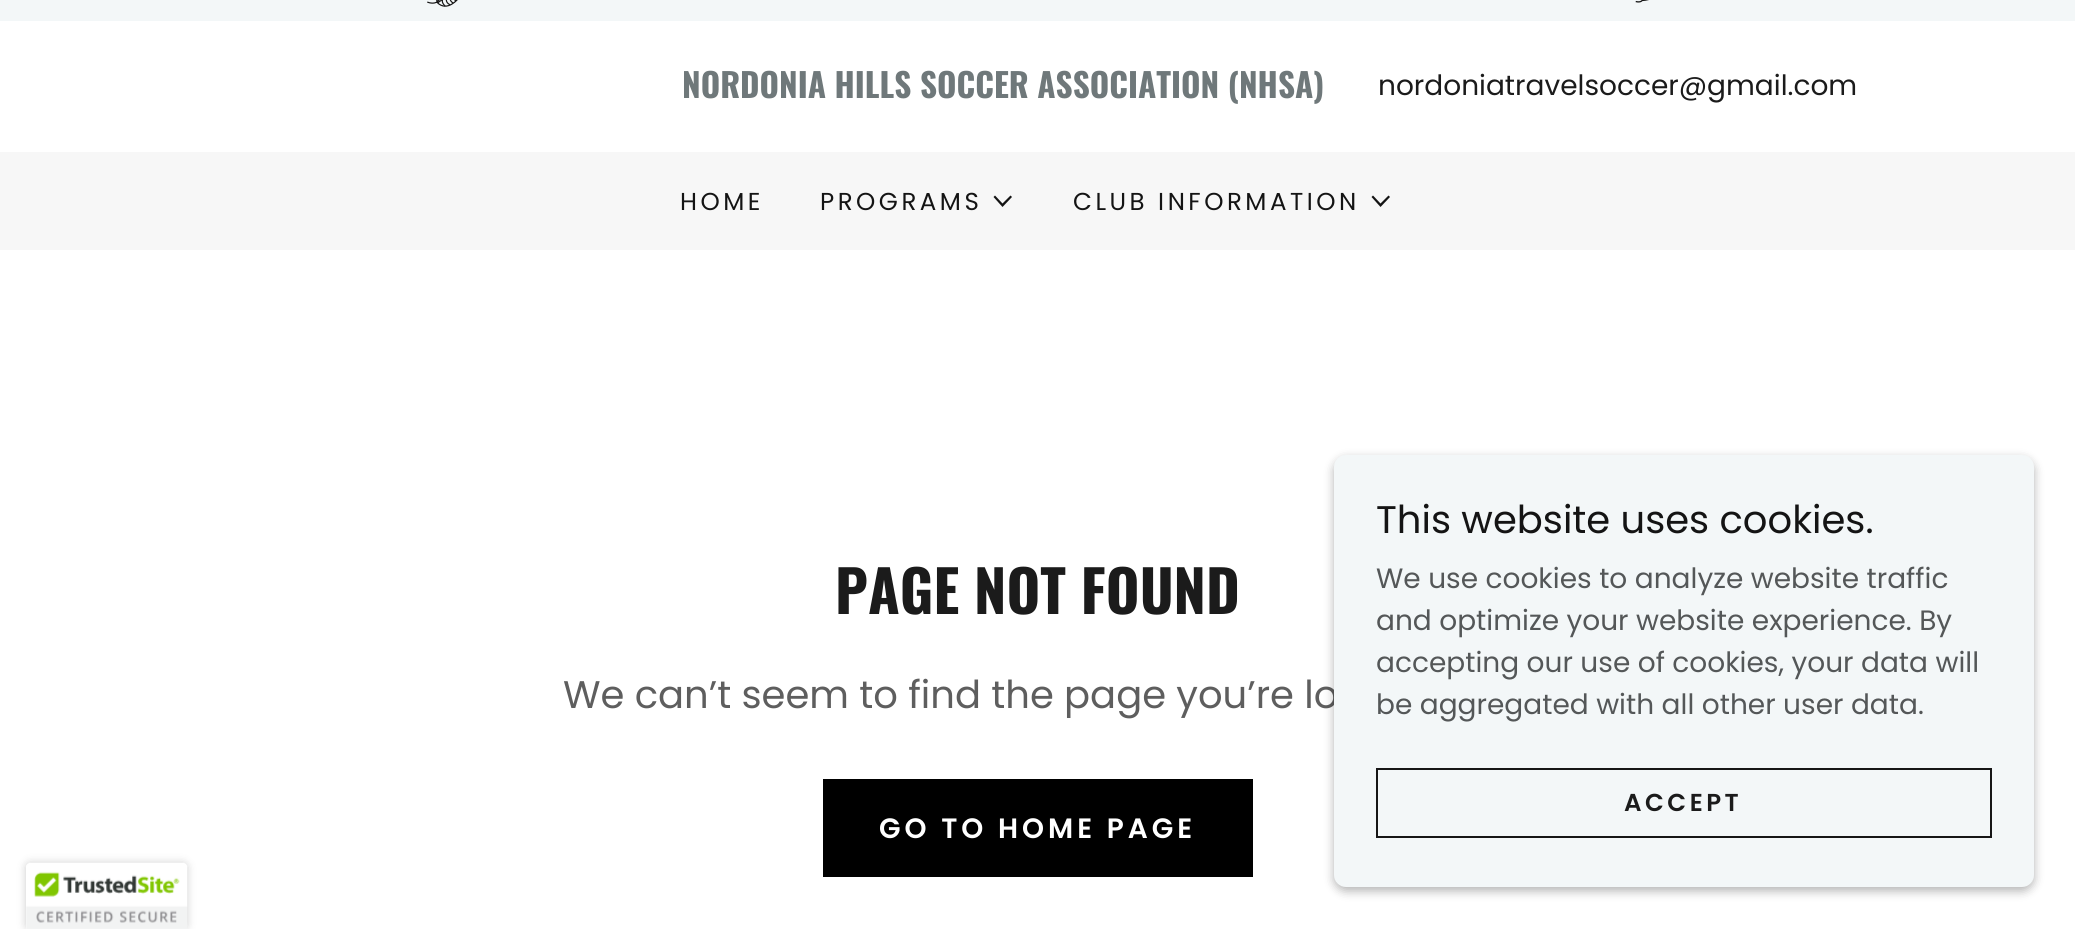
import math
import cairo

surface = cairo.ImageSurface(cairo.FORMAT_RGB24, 2075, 929)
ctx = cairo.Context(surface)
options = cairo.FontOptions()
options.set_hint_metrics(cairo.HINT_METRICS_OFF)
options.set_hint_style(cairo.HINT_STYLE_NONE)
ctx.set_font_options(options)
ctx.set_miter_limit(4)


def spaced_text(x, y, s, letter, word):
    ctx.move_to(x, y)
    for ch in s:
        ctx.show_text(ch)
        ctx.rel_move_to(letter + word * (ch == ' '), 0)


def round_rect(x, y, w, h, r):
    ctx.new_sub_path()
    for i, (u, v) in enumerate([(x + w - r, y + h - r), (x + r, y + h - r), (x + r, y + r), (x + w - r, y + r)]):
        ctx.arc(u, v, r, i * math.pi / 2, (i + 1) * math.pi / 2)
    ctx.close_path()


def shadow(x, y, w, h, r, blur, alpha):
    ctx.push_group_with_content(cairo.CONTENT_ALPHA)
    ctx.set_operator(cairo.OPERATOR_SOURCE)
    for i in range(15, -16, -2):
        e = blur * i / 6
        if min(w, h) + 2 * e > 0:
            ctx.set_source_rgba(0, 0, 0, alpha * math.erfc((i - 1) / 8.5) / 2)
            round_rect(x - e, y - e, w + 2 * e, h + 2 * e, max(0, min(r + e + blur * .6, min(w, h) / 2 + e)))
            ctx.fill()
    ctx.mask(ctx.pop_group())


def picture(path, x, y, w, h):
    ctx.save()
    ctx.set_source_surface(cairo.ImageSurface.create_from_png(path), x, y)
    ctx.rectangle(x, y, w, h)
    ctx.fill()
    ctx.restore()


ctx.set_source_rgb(1, 1, 1)
ctx.paint()
ctx.set_source_rgb(0.953, 0.965, 0.969)
ctx.rectangle(0, 0, 2075, 21)
ctx.fill()
picture("img1.png", 427, 0, 31, 7)
picture("img2.png", 1635, 0, 14, 3)
ctx.select_font_face("Oswald", cairo.FONT_SLANT_NORMAL, cairo.FONT_WEIGHT_BOLD)
ctx.set_font_size(33.25)
ctx.set_source_rgb(0.435, 0.471, 0.478)
ctx.move_to(682, 98)
ctx.show_text("NORDONIA HILLS SOCCER ASSOCIATION (NHSA)")
ctx.select_font_face("Poppins")
ctx.set_font_size(28)
ctx.set_source_rgb(0.106, 0.106, 0.106)
ctx.move_to(1378, 95)
ctx.show_text("nordoniatravelsoccer@gmail.com")
ctx.set_source_rgb(0.965, 0.965, 0.965)
ctx.rectangle(0, 152, 2075, 98)
ctx.fill()
ctx.set_font_size(24.5)
ctx.set_source_rgb(0.082, 0.082, 0.082)
spaced_text(680, 210, "HOME", 3.5, 0)
spaced_text(820, 210, "PROGRAMS", 3.5, 0)
ctx.set_fill_rule(cairo.FILL_RULE_EVEN_ODD)
ctx.new_path()
ctx.move_to(1010.5, 195.5)
ctx.line_to(1002.5, 203.5)
ctx.line_to(995, 195.5)
ctx.line_to(993.5, 197)
ctx.line_to(1002.5, 207)
ctx.line_to(1012, 197)
ctx.close_path()
ctx.fill()
spaced_text(1073, 210, "CLUB INFORMATION", 3.5, 0)
ctx.new_path()
ctx.move_to(1388.5, 195.5)
ctx.line_to(1380.5, 203.5)
ctx.line_to(1373, 195.5)
ctx.line_to(1371.5, 197)
ctx.line_to(1380.5, 207)
ctx.line_to(1390, 197)
ctx.close_path()
ctx.fill()
ctx.select_font_face("Oswald", cairo.FONT_SLANT_NORMAL, cairo.FONT_WEIGHT_BOLD)
ctx.set_font_size(57.75)
ctx.set_source_rgb(0.106, 0.106, 0.106)
ctx.move_to(835, 614)
ctx.show_text("PAGE NOT FOUND")
ctx.select_font_face("Poppins")
ctx.set_font_size(38.5)
ctx.set_source_rgb(0.369, 0.369, 0.369)
ctx.move_to(563, 708)
ctx.show_text("We can’t seem to find the page you’re lo")
ctx.set_source_rgb(0, 0, 0)
ctx.rectangle(823, 779, 430, 98)
ctx.fill()
ctx.select_font_face("Poppins SemiBold")
ctx.set_font_size(28)
ctx.set_source_rgb(1, 1, 1)
spaced_text(879, 838, "GO TO HOME PAGE", 4, 0)
ctx.set_source_rgb(0, 0, 0)
shadow(1334, 459, 700, 432, 12, 5, 0.3)
ctx.set_source_rgb(0.953, 0.965, 0.969)
round_rect(1334, 455, 700, 432, 12)
ctx.fill()
ctx.select_font_face("Poppins")
ctx.set_font_size(38.5)
ctx.set_source_rgb(0.082, 0.082, 0.082)
ctx.move_to(1376, 533)
ctx.show_text("This website uses cookies.")
ctx.set_font_size(28)
ctx.set_source_rgb(0.329, 0.341, 0.345)
ctx.move_to(1376, 588)
ctx.show_text("We use cookies to analyze website traffic")
ctx.move_to(1376, 630)
ctx.show_text("and optimize your website experience. By")
ctx.move_to(1376, 672)
ctx.show_text("accepting our use of cookies, your data will")
ctx.move_to(1376, 714)
ctx.show_text("be aggregated with all other user data.")
ctx.rectangle(1377, 769, 614, 68)
ctx.set_source_rgb(0.086, 0.086, 0.086)
ctx.stroke()
ctx.select_font_face("Poppins SemiBold")
ctx.set_font_size(24.5)
ctx.set_source_rgb(0.106, 0.106, 0.106)
spaced_text(1624, 811, "ACCEPT", 3.5, 0)
ctx.set_source_rgb(0, 0, 0)
shadow(26, 863, 161, 66, 4, 4.5, 0.2)
ctx.set_source_rgb(1, 1, 1)
ctx.new_path()
ctx.move_to(30, 863)
ctx.line_to(183, 863)
ctx.curve_to(185, 863, 187, 865, 187, 867)
ctx.line_to(187, 929)
ctx.line_to(26, 929)
ctx.line_to(26, 867)
ctx.curve_to(26, 865, 28, 863, 30, 863)
ctx.close_path()
ctx.fill()
picture("img3.png", 26, 862, 162, 67)
surface.write_to_png("page.png")
